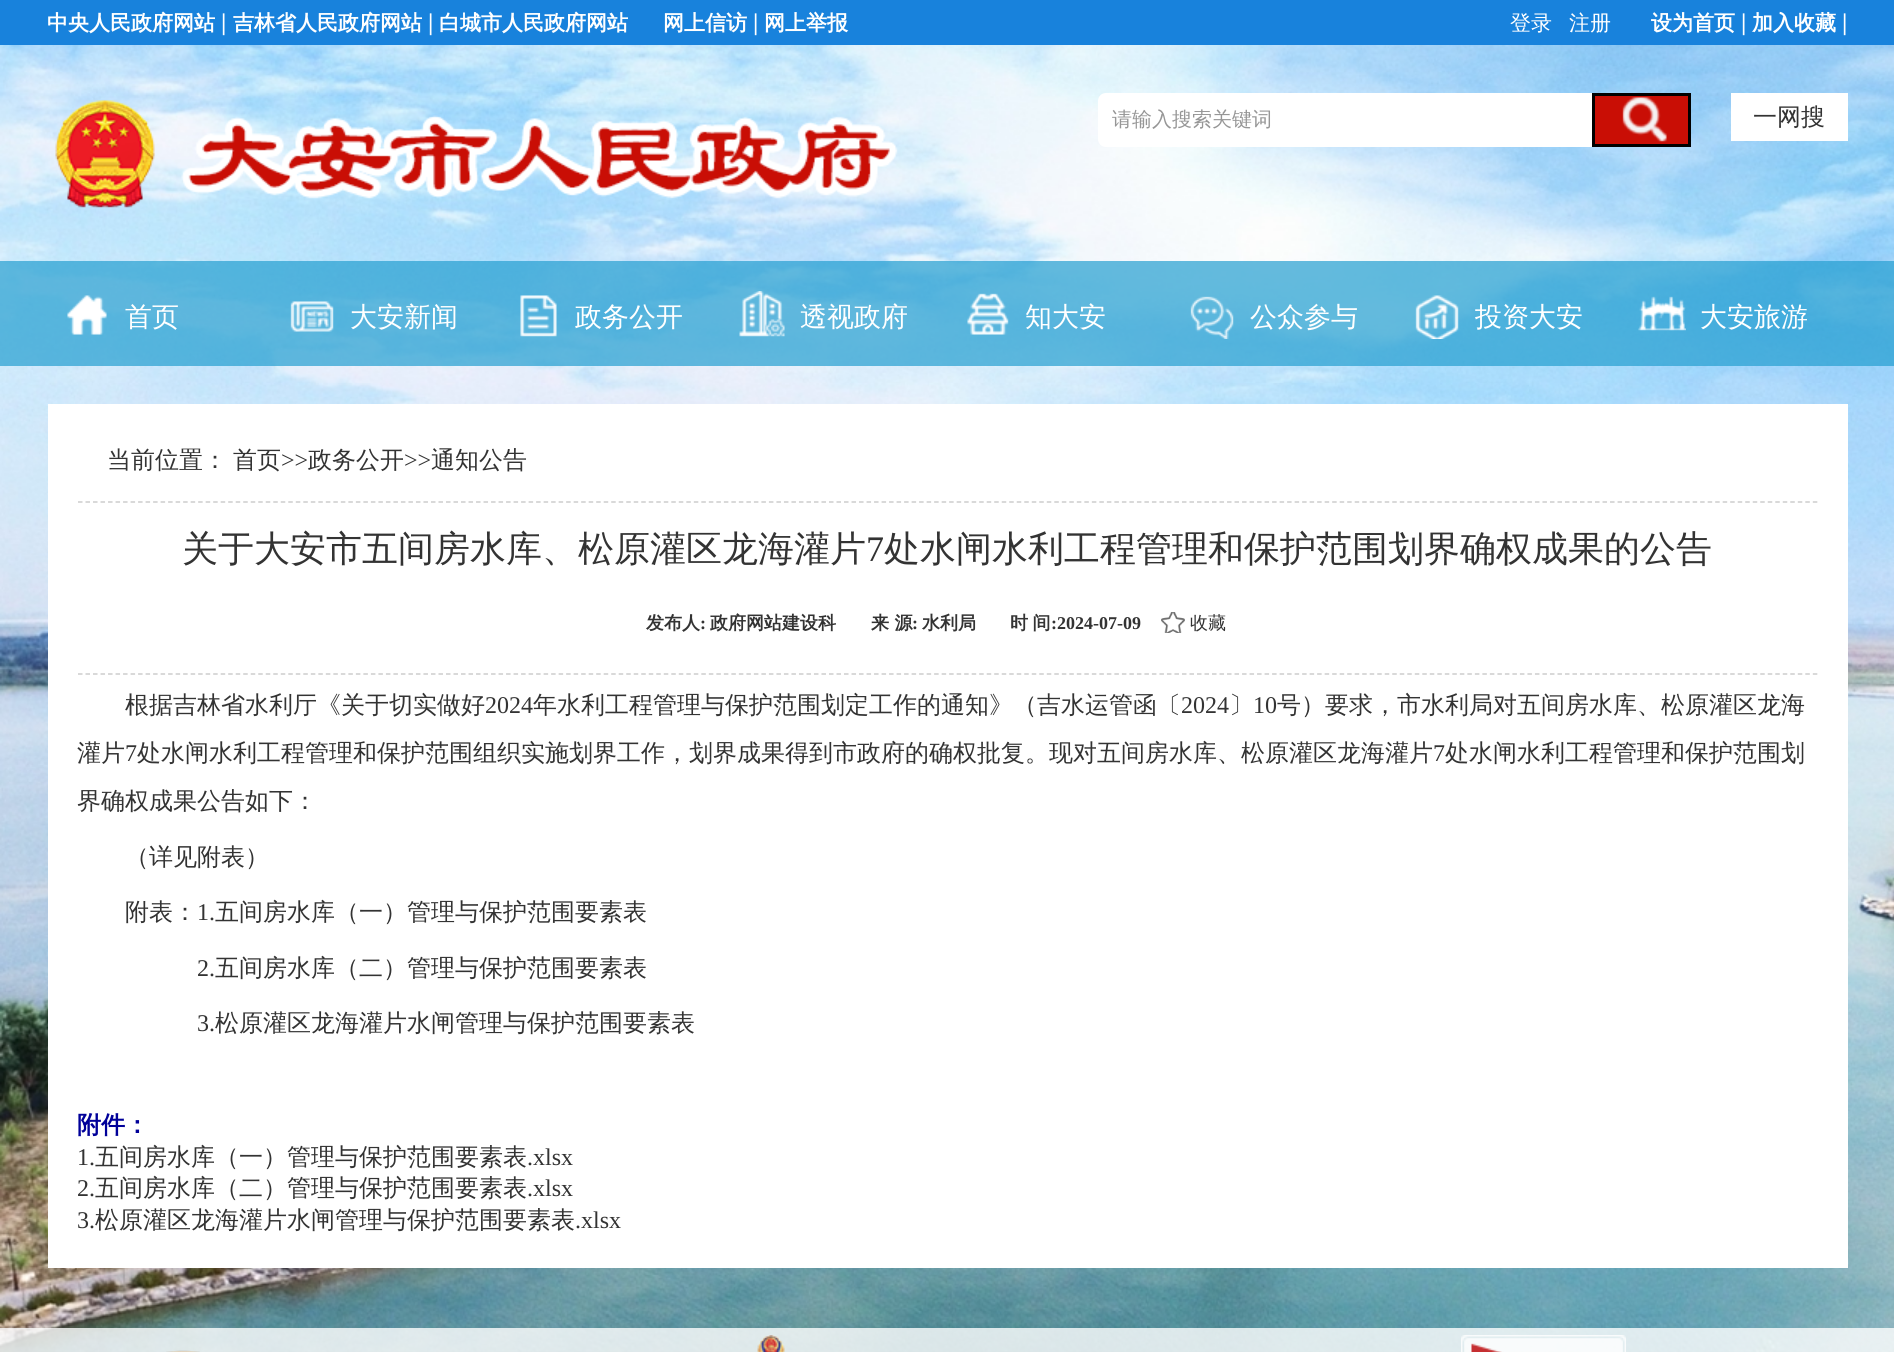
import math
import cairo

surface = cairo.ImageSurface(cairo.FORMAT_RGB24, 1894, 1352)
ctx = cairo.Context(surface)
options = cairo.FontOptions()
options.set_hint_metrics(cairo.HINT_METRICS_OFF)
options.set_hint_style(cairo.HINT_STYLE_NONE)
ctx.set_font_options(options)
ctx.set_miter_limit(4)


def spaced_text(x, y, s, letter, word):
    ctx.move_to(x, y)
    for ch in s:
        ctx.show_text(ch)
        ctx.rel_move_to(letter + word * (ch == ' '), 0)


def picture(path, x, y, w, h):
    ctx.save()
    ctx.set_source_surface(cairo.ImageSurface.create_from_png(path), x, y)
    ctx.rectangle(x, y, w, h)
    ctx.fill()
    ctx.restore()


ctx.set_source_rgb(1, 1, 1)
ctx.paint()
picture("img1.png", 0, 45, 1894, 1307)
ctx.set_source_rgb(0.094, 0.51, 0.863)
ctx.rectangle(0, 0, 1894, 45)
ctx.fill()
ctx.select_font_face("WenQuanYi Zen Hei", cairo.FONT_SLANT_NORMAL, cairo.FONT_WEIGHT_BOLD)
ctx.set_font_size(21)
ctx.set_source_rgb(1, 1, 1)
ctx.move_to(47, 30)
ctx.show_text("中央人民政府网站")
ctx.select_font_face("Liberation Serif", cairo.FONT_SLANT_NORMAL, cairo.FONT_WEIGHT_BOLD)
ctx.set_font_size(24)
ctx.move_to(221, 30)
ctx.show_text("|")
ctx.select_font_face("WenQuanYi Zen Hei", cairo.FONT_SLANT_NORMAL, cairo.FONT_WEIGHT_BOLD)
ctx.set_font_size(21)
ctx.move_to(233, 30)
ctx.show_text("吉林省人民政府网站")
ctx.select_font_face("Liberation Serif", cairo.FONT_SLANT_NORMAL, cairo.FONT_WEIGHT_BOLD)
ctx.set_font_size(24)
ctx.move_to(428, 30)
ctx.show_text("|")
ctx.select_font_face("WenQuanYi Zen Hei", cairo.FONT_SLANT_NORMAL, cairo.FONT_WEIGHT_BOLD)
ctx.set_font_size(21)
ctx.move_to(439, 30)
ctx.show_text("白城市人民政府网站")
ctx.move_to(663, 30)
ctx.show_text("网上信访")
ctx.select_font_face("Liberation Serif", cairo.FONT_SLANT_NORMAL, cairo.FONT_WEIGHT_BOLD)
ctx.set_font_size(24)
ctx.move_to(753, 30)
ctx.show_text("|")
ctx.select_font_face("WenQuanYi Zen Hei", cairo.FONT_SLANT_NORMAL, cairo.FONT_WEIGHT_BOLD)
ctx.set_font_size(21)
ctx.move_to(764, 30)
ctx.show_text("网上举报")
ctx.move_to(1651, 30)
ctx.show_text("设为首页")
ctx.select_font_face("Liberation Serif", cairo.FONT_SLANT_NORMAL, cairo.FONT_WEIGHT_BOLD)
ctx.set_font_size(24)
ctx.move_to(1741, 30)
ctx.show_text("|")
ctx.select_font_face("WenQuanYi Zen Hei", cairo.FONT_SLANT_NORMAL, cairo.FONT_WEIGHT_BOLD)
ctx.set_font_size(21)
ctx.move_to(1752, 30)
ctx.show_text("加入收藏")
ctx.select_font_face("Liberation Serif", cairo.FONT_SLANT_NORMAL, cairo.FONT_WEIGHT_BOLD)
ctx.set_font_size(24)
ctx.move_to(1842, 30)
ctx.show_text("|")
ctx.select_font_face("WenQuanYi Zen Hei Medium")
ctx.set_font_size(21)
ctx.move_to(1510, 30)
ctx.show_text("登录")
ctx.move_to(1569, 30)
ctx.show_text("注册")
picture("img2.png", 55, 100, 843, 108)
ctx.new_path()
ctx.move_to(1106, 93)
ctx.line_to(1592, 93)
ctx.line_to(1592, 147)
ctx.line_to(1106, 147)
ctx.curve_to(1101.5, 147, 1098, 143.5, 1098, 139)
ctx.line_to(1098, 101)
ctx.curve_to(1098, 96.5, 1101.5, 93, 1106, 93)
ctx.close_path()
ctx.fill()
ctx.set_font_size(20)
ctx.set_source_rgb(0.588, 0.588, 0.588)
ctx.move_to(1112, 126)
ctx.show_text("请输入搜索关键词")
picture("img3.png", 1595, 96, 93, 48)
ctx.rectangle(1593.5, 94.5, 96, 51)
ctx.set_source_rgb(0, 0, 0)
ctx.set_line_width(3)
ctx.stroke()
ctx.set_source_rgb(1, 1, 1)
ctx.rectangle(1731, 93, 117, 48)
ctx.fill()
ctx.set_font_size(24)
ctx.set_source_rgb(0.2, 0.2, 0.2)
ctx.move_to(1753, 125)
ctx.show_text("一网搜")
ctx.set_source_rgba(0.141, 0.62, 0.82, 0.7)
ctx.rectangle(0, 261, 1894, 105)
ctx.fill()
picture("img4.png", 67, 295, 40, 40)
ctx.set_font_size(27)
ctx.set_source_rgb(1, 1, 1)
ctx.move_to(125, 326)
ctx.show_text("首页")
picture("img5.png", 290, 301, 44, 31)
ctx.move_to(350, 326)
ctx.show_text("大安新闻")
picture("img6.png", 520, 295, 37, 42)
ctx.move_to(575, 326)
ctx.show_text("政务公开")
picture("img7.png", 739, 291, 46, 46)
ctx.move_to(800, 326)
ctx.show_text("透视政府")
picture("img8.png", 967, 293, 42, 42)
ctx.move_to(1025, 326)
ctx.show_text("知大安")
picture("img9.png", 1190, 296, 44, 43)
ctx.move_to(1250, 326)
ctx.show_text("公众参与")
picture("img10.png", 1415, 295, 44, 44)
ctx.move_to(1475, 326)
ctx.show_text("投资大安")
picture("img11.png", 1638, 296, 48, 35)
ctx.move_to(1700, 326)
ctx.show_text("大安旅游")
ctx.rectangle(48, 404, 1800, 864)
ctx.fill()
ctx.new_path()
ctx.move_to(78, 502)
ctx.line_to(1818, 502)
ctx.set_source_rgb(0.8, 0.8, 0.8)
ctx.set_line_width(1.5)
ctx.set_dash([4.5, 3.01])
ctx.stroke()
ctx.set_font_size(24)
ctx.set_source_rgb(0.2, 0.2, 0.2)
ctx.move_to(107, 468)
ctx.show_text("当前位置：")
ctx.move_to(233, 468)
ctx.show_text("首页")
ctx.select_font_face("Liberation Serif")
ctx.move_to(281, 468)
ctx.show_text(">>")
ctx.select_font_face("WenQuanYi Zen Hei Medium")
ctx.move_to(308, 468)
ctx.show_text("政务公开")
ctx.select_font_face("Liberation Serif")
ctx.move_to(404, 468)
ctx.show_text(">>")
ctx.select_font_face("WenQuanYi Zen Hei Medium")
ctx.move_to(431, 468)
ctx.show_text("通知公告")
ctx.set_font_size(36)
ctx.move_to(182, 561)
ctx.show_text("关于大安市五间房水库、松原灌区龙海灌片")
ctx.select_font_face("Liberation Serif")
ctx.move_to(866, 561)
ctx.show_text("7")
ctx.select_font_face("WenQuanYi Zen Hei Medium")
ctx.move_to(884, 561)
ctx.show_text("处水闸水利工程管理和保护范围划界确权成果的公告")
ctx.new_path()
ctx.move_to(78, 674)
ctx.line_to(1818, 674)
ctx.set_source_rgb(0.8, 0.8, 0.8)
ctx.stroke()
ctx.select_font_face("WenQuanYi Zen Hei", cairo.FONT_SLANT_NORMAL, cairo.FONT_WEIGHT_BOLD)
ctx.set_font_size(18)
ctx.set_source_rgb(0.2, 0.2, 0.2)
ctx.move_to(646, 629)
ctx.show_text("发布人")
ctx.select_font_face("Liberation Serif", cairo.FONT_SLANT_NORMAL, cairo.FONT_WEIGHT_BOLD)
ctx.move_to(700, 629)
ctx.show_text(":")
ctx.select_font_face("WenQuanYi Zen Hei", cairo.FONT_SLANT_NORMAL, cairo.FONT_WEIGHT_BOLD)
ctx.move_to(710, 629)
ctx.show_text("政府网站建设科")
ctx.move_to(871, 629)
ctx.show_text("来 源")
ctx.select_font_face("Liberation Serif", cairo.FONT_SLANT_NORMAL, cairo.FONT_WEIGHT_BOLD)
ctx.move_to(912, 629)
ctx.show_text(":")
ctx.select_font_face("WenQuanYi Zen Hei", cairo.FONT_SLANT_NORMAL, cairo.FONT_WEIGHT_BOLD)
ctx.move_to(922, 629)
ctx.show_text("水利局")
spaced_text(1010, 629, "时 间", 0, -1)
ctx.select_font_face("Liberation Serif", cairo.FONT_SLANT_NORMAL, cairo.FONT_WEIGHT_BOLD)
ctx.move_to(1051, 629)
ctx.show_text(":2024-07-09")
picture("img12.png", 1161, 612, 24, 21)
ctx.select_font_face("WenQuanYi Zen Hei Medium")
ctx.move_to(1190, 629)
ctx.show_text("收藏")
ctx.set_font_size(24)
ctx.move_to(125, 713)
ctx.show_text("根据吉林省水利厅《关于切实做好")
ctx.select_font_face("Liberation Serif")
ctx.move_to(485, 713)
ctx.show_text("2024")
ctx.select_font_face("WenQuanYi Zen Hei Medium")
ctx.move_to(533, 713)
ctx.show_text("年水利工程管理与保护范围划定工作的通知》（吉水运管函〔")
ctx.select_font_face("Liberation Serif")
ctx.move_to(1181, 713)
ctx.show_text("2024")
ctx.select_font_face("WenQuanYi Zen Hei Medium")
ctx.move_to(1229, 713)
ctx.show_text("〕")
ctx.select_font_face("Liberation Serif")
ctx.move_to(1253, 713)
ctx.show_text("10")
ctx.select_font_face("WenQuanYi Zen Hei Medium")
ctx.move_to(1277, 713)
ctx.show_text("号）要求，市水利局对五间房水库、松原灌区龙海")
ctx.move_to(77, 761)
ctx.show_text("灌片")
ctx.select_font_face("Liberation Serif")
ctx.move_to(125, 761)
ctx.show_text("7")
ctx.select_font_face("WenQuanYi Zen Hei Medium")
ctx.move_to(137, 761)
ctx.show_text("处水闸水利工程管理和保护范围组织实施划界工作，划界成果得到市政府的确权批复。现对五间房水库、松原灌区龙海灌片")
ctx.select_font_face("Liberation Serif")
ctx.move_to(1433, 761)
ctx.show_text("7")
ctx.select_font_face("WenQuanYi Zen Hei Medium")
ctx.move_to(1445, 761)
ctx.show_text("处水闸水利工程管理和保护范围划")
ctx.move_to(77, 809)
ctx.show_text("界确权成果公告如下：")
ctx.move_to(125, 865)
ctx.show_text("（详见附表）")
ctx.move_to(125, 920)
ctx.show_text("附表：")
ctx.select_font_face("Liberation Serif")
ctx.move_to(197, 920)
ctx.show_text("1.")
ctx.select_font_face("WenQuanYi Zen Hei Medium")
ctx.move_to(215, 920)
ctx.show_text("五间房水库（一）管理与保护范围要素表")
ctx.select_font_face("Liberation Serif")
ctx.move_to(197, 976)
ctx.show_text("2.")
ctx.select_font_face("WenQuanYi Zen Hei Medium")
ctx.move_to(215, 976)
ctx.show_text("五间房水库（二）管理与保护范围要素表")
ctx.select_font_face("Liberation Serif")
ctx.move_to(197, 1031)
ctx.show_text("3.")
ctx.select_font_face("WenQuanYi Zen Hei Medium")
ctx.move_to(215, 1031)
ctx.show_text("松原灌区龙海灌片水闸管理与保护范围要素表")
ctx.select_font_face("WenQuanYi Zen Hei", cairo.FONT_SLANT_NORMAL, cairo.FONT_WEIGHT_BOLD)
ctx.set_source_rgb(0, 0, 0.6)
ctx.move_to(77, 1133)
ctx.show_text("附件：")
ctx.select_font_face("Liberation Serif")
ctx.set_source_rgb(0.2, 0.2, 0.2)
ctx.move_to(77, 1165)
ctx.show_text("1.")
ctx.select_font_face("WenQuanYi Zen Hei Medium")
ctx.move_to(95, 1165)
ctx.show_text("五间房水库（一）管理与保护范围要素表")
ctx.select_font_face("Liberation Serif")
ctx.move_to(527, 1165)
ctx.show_text(".xlsx")
ctx.move_to(77, 1196)
ctx.show_text("2.")
ctx.select_font_face("WenQuanYi Zen Hei Medium")
ctx.move_to(95, 1196)
ctx.show_text("五间房水库（二）管理与保护范围要素表")
ctx.select_font_face("Liberation Serif")
ctx.move_to(527, 1196)
ctx.show_text(".xlsx")
ctx.move_to(77, 1228)
ctx.show_text("3.")
ctx.select_font_face("WenQuanYi Zen Hei Medium")
ctx.move_to(95, 1228)
ctx.show_text("松原灌区龙海灌片水闸管理与保护范围要素表")
ctx.select_font_face("Liberation Serif")
ctx.move_to(575, 1228)
ctx.show_text(".xlsx")
ctx.set_source_rgba(1, 1, 1, 0.8)
ctx.rectangle(0, 1328, 1894, 24)
ctx.fill()
picture("img13.png", 166, 1350, 34, 2)
picture("img14.png", 757, 1335, 28, 17)
picture("img15.png", 1461, 1335, 165, 17)
surface.write_to_png("page.png")
